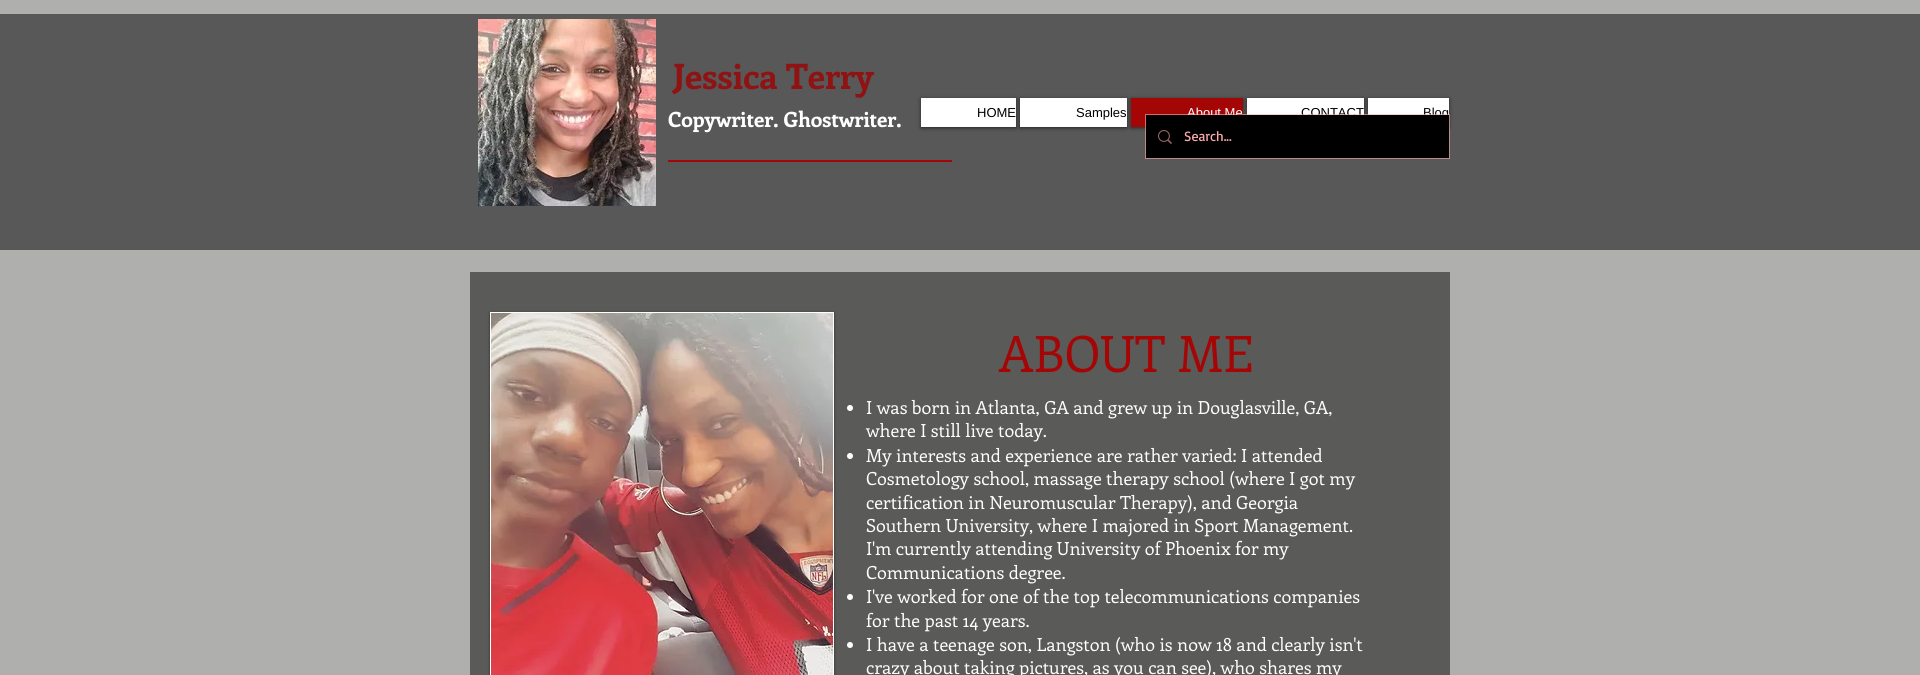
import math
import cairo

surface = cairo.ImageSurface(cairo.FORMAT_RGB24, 1920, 675)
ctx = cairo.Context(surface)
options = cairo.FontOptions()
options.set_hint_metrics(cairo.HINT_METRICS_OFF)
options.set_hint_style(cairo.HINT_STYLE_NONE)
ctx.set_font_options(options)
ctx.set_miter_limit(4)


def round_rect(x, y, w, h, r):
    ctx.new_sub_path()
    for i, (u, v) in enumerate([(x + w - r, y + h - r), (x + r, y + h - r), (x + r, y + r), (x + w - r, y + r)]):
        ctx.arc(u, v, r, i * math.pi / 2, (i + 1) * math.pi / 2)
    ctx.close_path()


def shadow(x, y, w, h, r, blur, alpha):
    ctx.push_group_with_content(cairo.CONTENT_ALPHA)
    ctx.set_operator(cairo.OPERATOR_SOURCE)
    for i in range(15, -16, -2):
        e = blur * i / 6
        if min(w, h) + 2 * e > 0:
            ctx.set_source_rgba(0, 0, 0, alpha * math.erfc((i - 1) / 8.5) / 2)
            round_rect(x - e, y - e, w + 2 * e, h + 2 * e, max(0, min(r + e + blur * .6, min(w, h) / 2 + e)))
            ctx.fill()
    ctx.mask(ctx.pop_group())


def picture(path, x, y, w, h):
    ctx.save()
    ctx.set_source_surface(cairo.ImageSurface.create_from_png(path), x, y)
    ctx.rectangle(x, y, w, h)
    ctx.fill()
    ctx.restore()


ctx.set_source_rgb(0.686, 0.686, 0.682)
ctx.paint()
ctx.set_source_rgb(0.345, 0.345, 0.345)
ctx.rectangle(0, 14, 1920, 236)
ctx.fill()
picture("img1.png", 478, 19, 178, 187)
ctx.select_font_face("Enriqueta", cairo.FONT_SLANT_NORMAL, cairo.FONT_WEIGHT_BOLD)
ctx.set_font_size(35)
ctx.set_source_rgb(0.561, 0.075, 0.075)
ctx.move_to(673, 89)
ctx.show_text("Jessica Terry")
ctx.set_font_size(21)
ctx.set_source_rgb(1, 1, 1)
ctx.move_to(668, 127)
ctx.show_text("Copywriter. Ghostwriter.")
ctx.set_source_rgb(0, 0, 0)
shadow(921, 99, 95, 29, 0, 2, 0.6)
ctx.set_source_rgb(1, 1, 1)
ctx.rectangle(921, 98, 95, 29)
ctx.fill()
ctx.select_font_face("Liberation Sans")
ctx.set_font_size(13)
ctx.set_source_rgb(0, 0, 0)
ctx.move_to(977, 117)
ctx.show_text("HOME")
ctx.set_source_rgb(0, 0, 0)
shadow(1020, 99, 107, 29, 0, 2, 0.6)
ctx.set_source_rgb(1, 1, 1)
ctx.rectangle(1020, 98, 107, 29)
ctx.fill()
ctx.set_source_rgb(0, 0, 0)
ctx.move_to(1076, 117)
ctx.show_text("Samples")
ctx.set_source_rgb(0, 0, 0)
shadow(1131, 99, 112, 29, 0, 2, 0.6)
ctx.set_source_rgb(0.643, 0.024, 0.024)
ctx.rectangle(1131, 98, 112, 29)
ctx.fill()
ctx.set_source_rgb(1, 1, 1)
ctx.move_to(1187, 117)
ctx.show_text("About Me")
ctx.set_source_rgb(0, 0, 0)
shadow(1247, 99, 117, 29, 0, 2, 0.6)
ctx.set_source_rgb(1, 1, 1)
ctx.rectangle(1247, 98, 117, 17)
ctx.fill()
ctx.set_source_rgb(0, 0, 0)
ctx.move_to(1301, 117)
ctx.show_text("CONTACT")
ctx.set_source_rgb(0, 0, 0)
shadow(1368, 99, 81, 29, 0, 2, 0.6)
ctx.set_source_rgb(1, 1, 1)
ctx.rectangle(1368, 98, 81, 17)
ctx.fill()
ctx.set_source_rgb(0, 0, 0)
ctx.move_to(1423, 117)
ctx.show_text("Blog")
ctx.set_source_rgb(0.643, 0.024, 0.024)
ctx.rectangle(668, 160, 284, 2)
ctx.fill()
ctx.rectangle(1145.5, 114.5, 304, 44)
ctx.set_source_rgba(0.988, 0.671, 0.671, 0.6)
ctx.set_line_width(1)
ctx.stroke()
ctx.set_source_rgb(0, 0, 0)
ctx.rectangle(1146, 115, 303, 43)
ctx.fill()
picture("img2.png", 1158, 130, 14, 14)
ctx.select_font_face("Basic")
ctx.set_font_size(14)
ctx.set_source_rgb(0.988, 0.671, 0.671)
ctx.move_to(1184, 141)
ctx.show_text("Search...")
ctx.set_source_rgb(0.353, 0.353, 0.349)
ctx.rectangle(470, 272, 980, 403)
ctx.fill()
ctx.set_source_rgb(0, 0, 0)
shadow(490, 313, 344, 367, 0, 1.5, 0.5)
ctx.set_source_rgb(1, 1, 1)
ctx.rectangle(490, 312, 344, 363)
ctx.fill()
picture("img3.png", 491, 313, 342, 362)
ctx.select_font_face("Enriqueta")
ctx.set_font_size(50)
ctx.set_source_rgb(0.643, 0.024, 0.024)
ctx.move_to(999, 372)
ctx.show_text("ABOUT ME")
ctx.set_source_rgb(1, 1, 1)
ctx.new_path()
ctx.arc(850, 408, 3, 0, 2 * math.pi)
ctx.fill()
ctx.set_font_size(18)
ctx.move_to(866, 414)
ctx.show_text("I was born in Atlanta, GA and grew up in Douglasville, GA,")
ctx.move_to(866, 437)
ctx.show_text("where I still live today.")
ctx.new_path()
ctx.arc(850, 456, 3, 0, 2 * math.pi)
ctx.fill()
ctx.move_to(866, 462)
ctx.show_text("My interests and experience are rather varied: I attended")
ctx.move_to(866, 485)
ctx.show_text("Cosmetology school, massage therapy school (where I got my")
ctx.move_to(866, 509)
ctx.show_text("certification in Neuromuscular Therapy), and Georgia")
ctx.move_to(866, 532)
ctx.show_text("Southern University, where I majored in Sport Management.")
ctx.move_to(866, 555)
ctx.show_text("I'm currently attending University of Phoenix for my")
ctx.move_to(866, 579)
ctx.show_text("Communications degree.")
ctx.new_path()
ctx.arc(850, 597, 3, 0, 2 * math.pi)
ctx.fill()
ctx.move_to(866, 603)
ctx.show_text("I've worked for one of the top telecommunications companies")
ctx.move_to(866, 627)
ctx.show_text("for the past 14 years.")
ctx.new_path()
ctx.arc(850, 645, 3, 0, 2 * math.pi)
ctx.fill()
ctx.move_to(866, 651)
ctx.show_text("I have a teenage son, Langston (who is now 18 and clearly isn't")
ctx.move_to(866, 674)
ctx.show_text("crazy about taking pictures, as you can see), who shares my")
surface.write_to_png("page.png")
